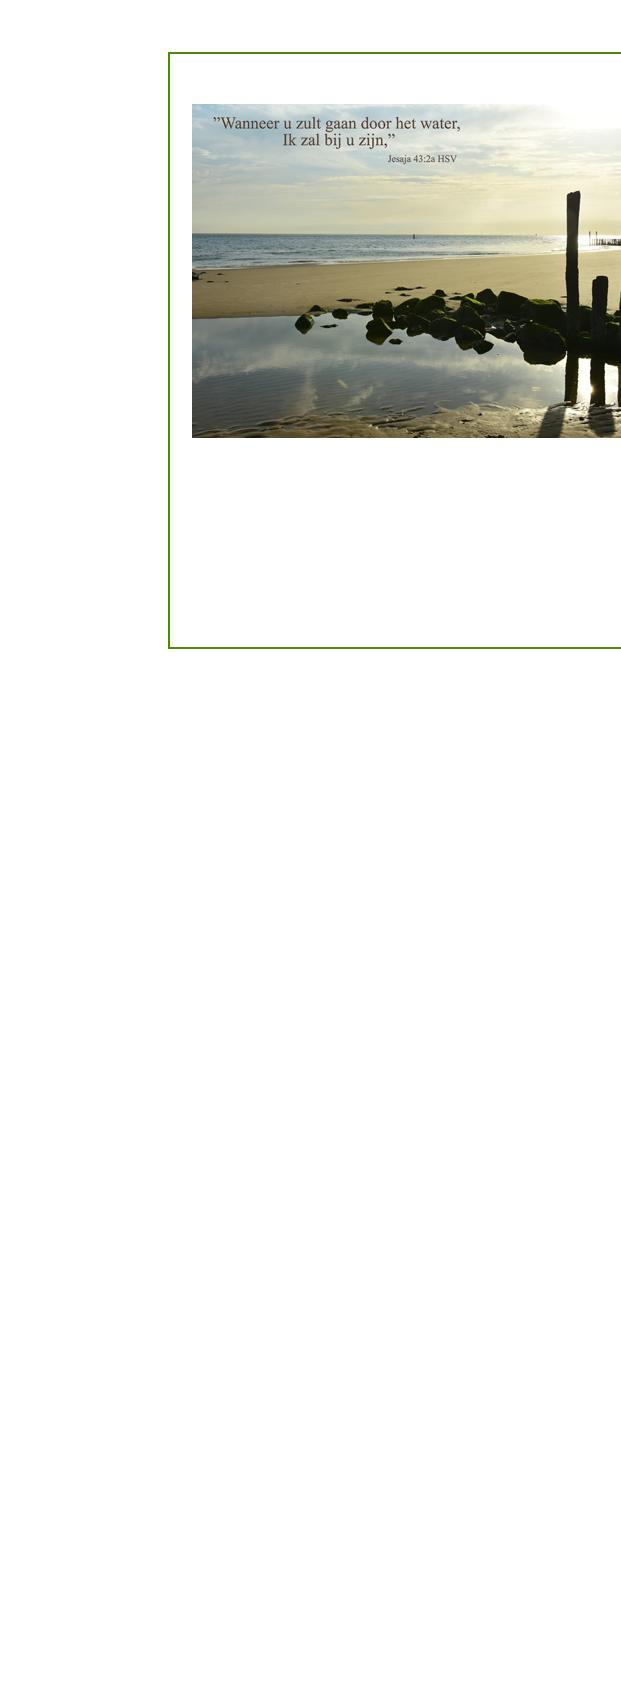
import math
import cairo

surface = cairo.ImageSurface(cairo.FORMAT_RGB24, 621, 1699)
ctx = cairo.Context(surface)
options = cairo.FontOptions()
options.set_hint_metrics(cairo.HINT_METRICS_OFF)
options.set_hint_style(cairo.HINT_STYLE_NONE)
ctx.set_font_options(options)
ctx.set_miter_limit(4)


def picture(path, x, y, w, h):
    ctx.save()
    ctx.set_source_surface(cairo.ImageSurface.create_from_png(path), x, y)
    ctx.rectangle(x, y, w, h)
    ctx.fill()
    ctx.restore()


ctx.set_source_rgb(1, 1, 1)
ctx.paint()
ctx.rectangle(169, 53, 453, 595)
ctx.set_source_rgb(0.294, 0.541, 0.031)
ctx.stroke()
picture("img1.png", 192, 104, 429, 334)
surface.write_to_png("page.png")
